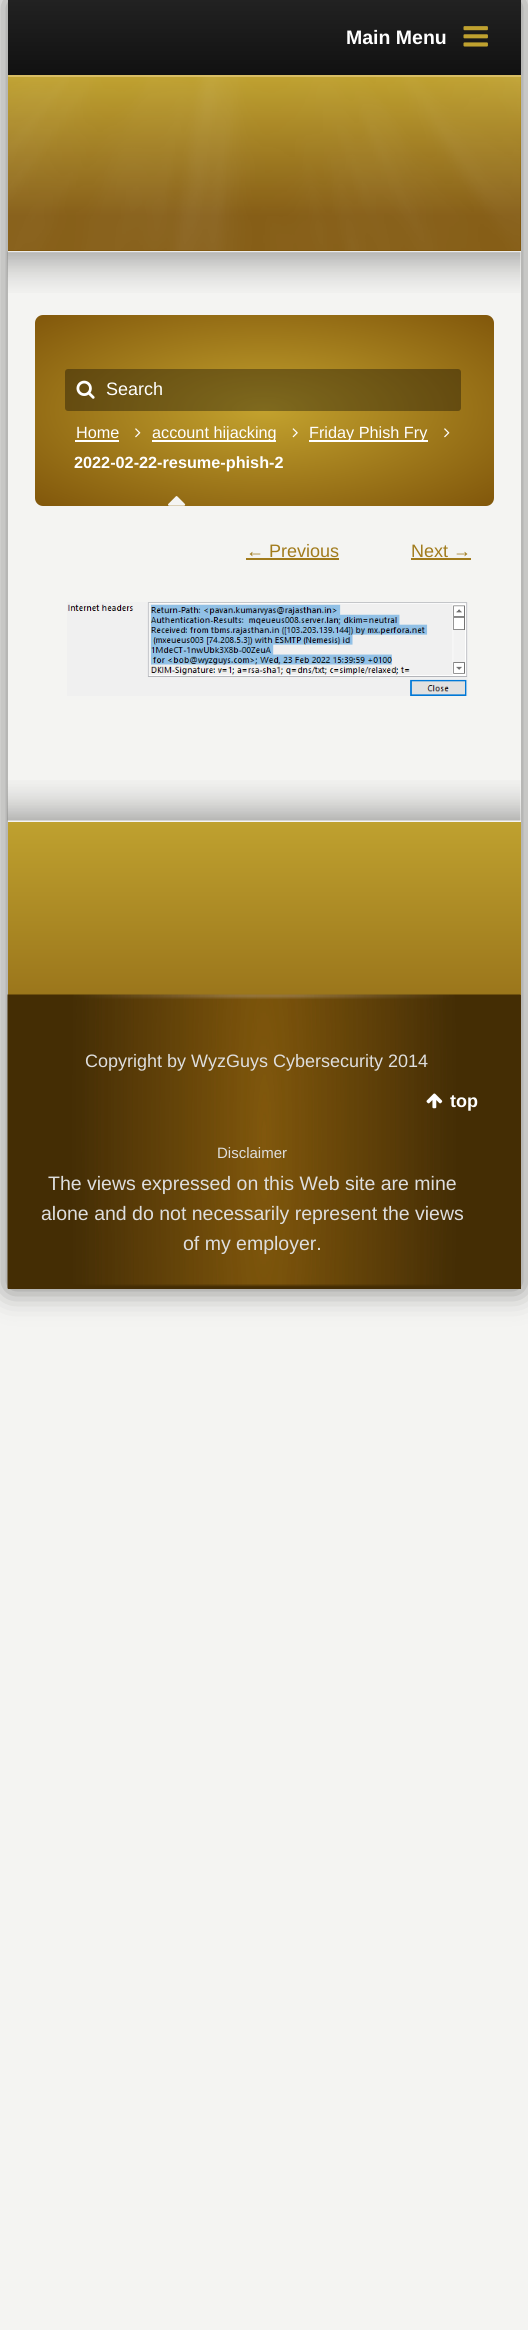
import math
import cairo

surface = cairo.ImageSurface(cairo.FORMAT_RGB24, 528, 2330)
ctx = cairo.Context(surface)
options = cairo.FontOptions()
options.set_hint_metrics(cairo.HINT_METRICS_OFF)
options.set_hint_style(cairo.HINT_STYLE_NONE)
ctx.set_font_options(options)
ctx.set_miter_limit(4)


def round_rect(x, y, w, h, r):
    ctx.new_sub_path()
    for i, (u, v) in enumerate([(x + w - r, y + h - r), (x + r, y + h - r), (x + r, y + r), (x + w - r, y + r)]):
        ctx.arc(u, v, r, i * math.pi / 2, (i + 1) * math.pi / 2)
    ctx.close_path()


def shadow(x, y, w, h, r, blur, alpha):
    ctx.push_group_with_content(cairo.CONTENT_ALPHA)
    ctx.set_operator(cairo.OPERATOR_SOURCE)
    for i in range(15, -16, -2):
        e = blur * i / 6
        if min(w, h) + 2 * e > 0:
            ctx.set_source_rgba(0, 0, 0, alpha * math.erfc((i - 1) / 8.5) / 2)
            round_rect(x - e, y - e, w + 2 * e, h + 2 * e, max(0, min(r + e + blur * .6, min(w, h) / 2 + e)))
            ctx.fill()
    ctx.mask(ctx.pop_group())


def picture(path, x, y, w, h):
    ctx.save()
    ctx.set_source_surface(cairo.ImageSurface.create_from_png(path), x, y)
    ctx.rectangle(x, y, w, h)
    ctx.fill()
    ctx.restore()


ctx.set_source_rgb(0.957, 0.957, 0.949)
ctx.paint()
ctx.set_source_rgb(0, 0, 0)
shadow(8, 0, 513, 1289, 0, 15, 0.5)
ctx.set_source_rgb(0.957, 0.957, 0.949)
ctx.rectangle(8, 251, 513, 571)
ctx.fill()
gradient = cairo.LinearGradient(264, 0, 264, 75)
gradient.add_color_stop_rgba(0, 0.133, 0.133, 0.133, 1)
gradient.add_color_stop_rgba(1, 0.067, 0.067, 0.067, 1)
ctx.set_source(gradient)
ctx.rectangle(8, 0, 513, 75)
ctx.fill()
ctx.select_font_face("Liberation Sans", cairo.FONT_SLANT_NORMAL, cairo.FONT_WEIGHT_BOLD)
ctx.set_font_size(19.5)
ctx.set_source_rgb(1, 1, 1)
ctx.move_to(346, 44)
ctx.show_text("Main Menu")
picture("img1.png", 463, 26, 25, 21)
gradient = cairo.LinearGradient(264, 76, 264, 251)
gradient.add_color_stop_rgba(0, 0.749, 0.631, 0.184, 1)
gradient.add_color_stop_rgba(0.8, 0.506, 0.341, 0.051, 1)
ctx.set_source(gradient)
ctx.rectangle(8, 77, 513, 174)
ctx.fill()
ctx.set_source_rgb(0.847, 0.741, 0.392)
ctx.rectangle(8, 75, 513, 2)
ctx.fill()
picture("img2.png", 8, 76, 512, 175)
picture("img3.png", 7, 251, 514, 42)
gradient = cairo.RadialGradient(0, 0, 0, 0, 0, 1)
gradient.set_matrix(cairo.Matrix(1 / 325, 0, 0, 1 / 135, -1 * 264 / 325, -1 * 410 / 135))
gradient.add_color_stop_rgba(0, 0.765, 0.635, 0.18, 1)
gradient.add_color_stop_rgba(1, 0.506, 0.341, 0.043, 1)
ctx.set_source(gradient)
round_rect(35, 315, 459, 191, 8)
ctx.fill()
ctx.set_source_rgba(0, 0, 0, 0.35)
round_rect(65, 369, 396, 42, 3)
ctx.fill()
picture("img4.png", 76, 380, 19, 19)
ctx.select_font_face("Liberation Sans")
ctx.set_font_size(18)
ctx.set_source_rgb(1, 1, 1)
ctx.move_to(106, 395)
ctx.show_text("Search")
ctx.set_font_size(16.25)
ctx.move_to(76, 438)
ctx.show_text("Home")
ctx.rectangle(75, 440, 44, 2)
ctx.fill()
picture("img5.png", 135, 428, 6, 10)
ctx.rectangle(152, 440, 124, 2)
ctx.fill()
ctx.move_to(152, 438)
ctx.show_text("account hijacking")
picture("img6.png", 292, 428, 6, 10)
ctx.rectangle(309, 440, 119, 2)
ctx.fill()
ctx.move_to(309, 438)
ctx.show_text("Friday Phish Fry")
picture("img7.png", 444, 428, 6, 10)
ctx.select_font_face("Liberation Sans", cairo.FONT_SLANT_NORMAL, cairo.FONT_WEIGHT_BOLD)
ctx.move_to(74, 468)
ctx.show_text("2022-02-22-resume-phish-2")
picture("img8.png", 168, 496, 18, 10)
ctx.select_font_face("Liberation Sans")
ctx.set_font_size(18)
ctx.set_source_rgb(0.631, 0.482, 0.11)
ctx.move_to(246, 557)
ctx.show_text("← Previous")
ctx.rectangle(246, 558, 93, 2)
ctx.fill()
ctx.move_to(411, 557)
ctx.show_text("Next →")
ctx.rectangle(411, 558, 60, 2)
ctx.fill()
picture("img9.png", 67, 602, 401, 94)
picture("img10.png", 7, 780, 514, 41)
gradient = cairo.LinearGradient(264, 822, 264, 1289)
gradient.add_color_stop_rgba(0, 0.749, 0.631, 0.184, 1)
gradient.add_color_stop_rgba(0.64, 0.506, 0.341, 0.051, 1)
ctx.set_source(gradient)
ctx.rectangle(8, 822, 513, 173)
ctx.fill()
ctx.set_source_rgb(0.267, 0.176, 0.016)
ctx.rectangle(8, 995, 513, 294)
ctx.fill()
picture("img11.png", 7, 994, 514, 295)
ctx.set_source_rgb(0.871, 0.871, 0.871)
ctx.move_to(85, 1067)
ctx.show_text("Copyright by WyzGuys Cybersecurity 2014")
picture("img12.png", 426, 1093, 17, 16)
ctx.select_font_face("Liberation Sans", cairo.FONT_SLANT_NORMAL, cairo.FONT_WEIGHT_BOLD)
ctx.set_source_rgb(1, 1, 1)
ctx.move_to(450, 1107)
ctx.show_text("top")
ctx.select_font_face("Liberation Sans")
ctx.set_font_size(15)
ctx.set_source_rgb(0.871, 0.871, 0.871)
ctx.move_to(217, 1158)
ctx.show_text("Disclaimer")
ctx.set_font_size(19.5)
ctx.move_to(48, 1190)
ctx.show_text("The views expressed on this Web site are mine")
ctx.move_to(41, 1220)
ctx.show_text("alone and do not necessarily represent the views")
ctx.move_to(183, 1250)
ctx.show_text("of my employer.")
surface.write_to_png("page.png")
